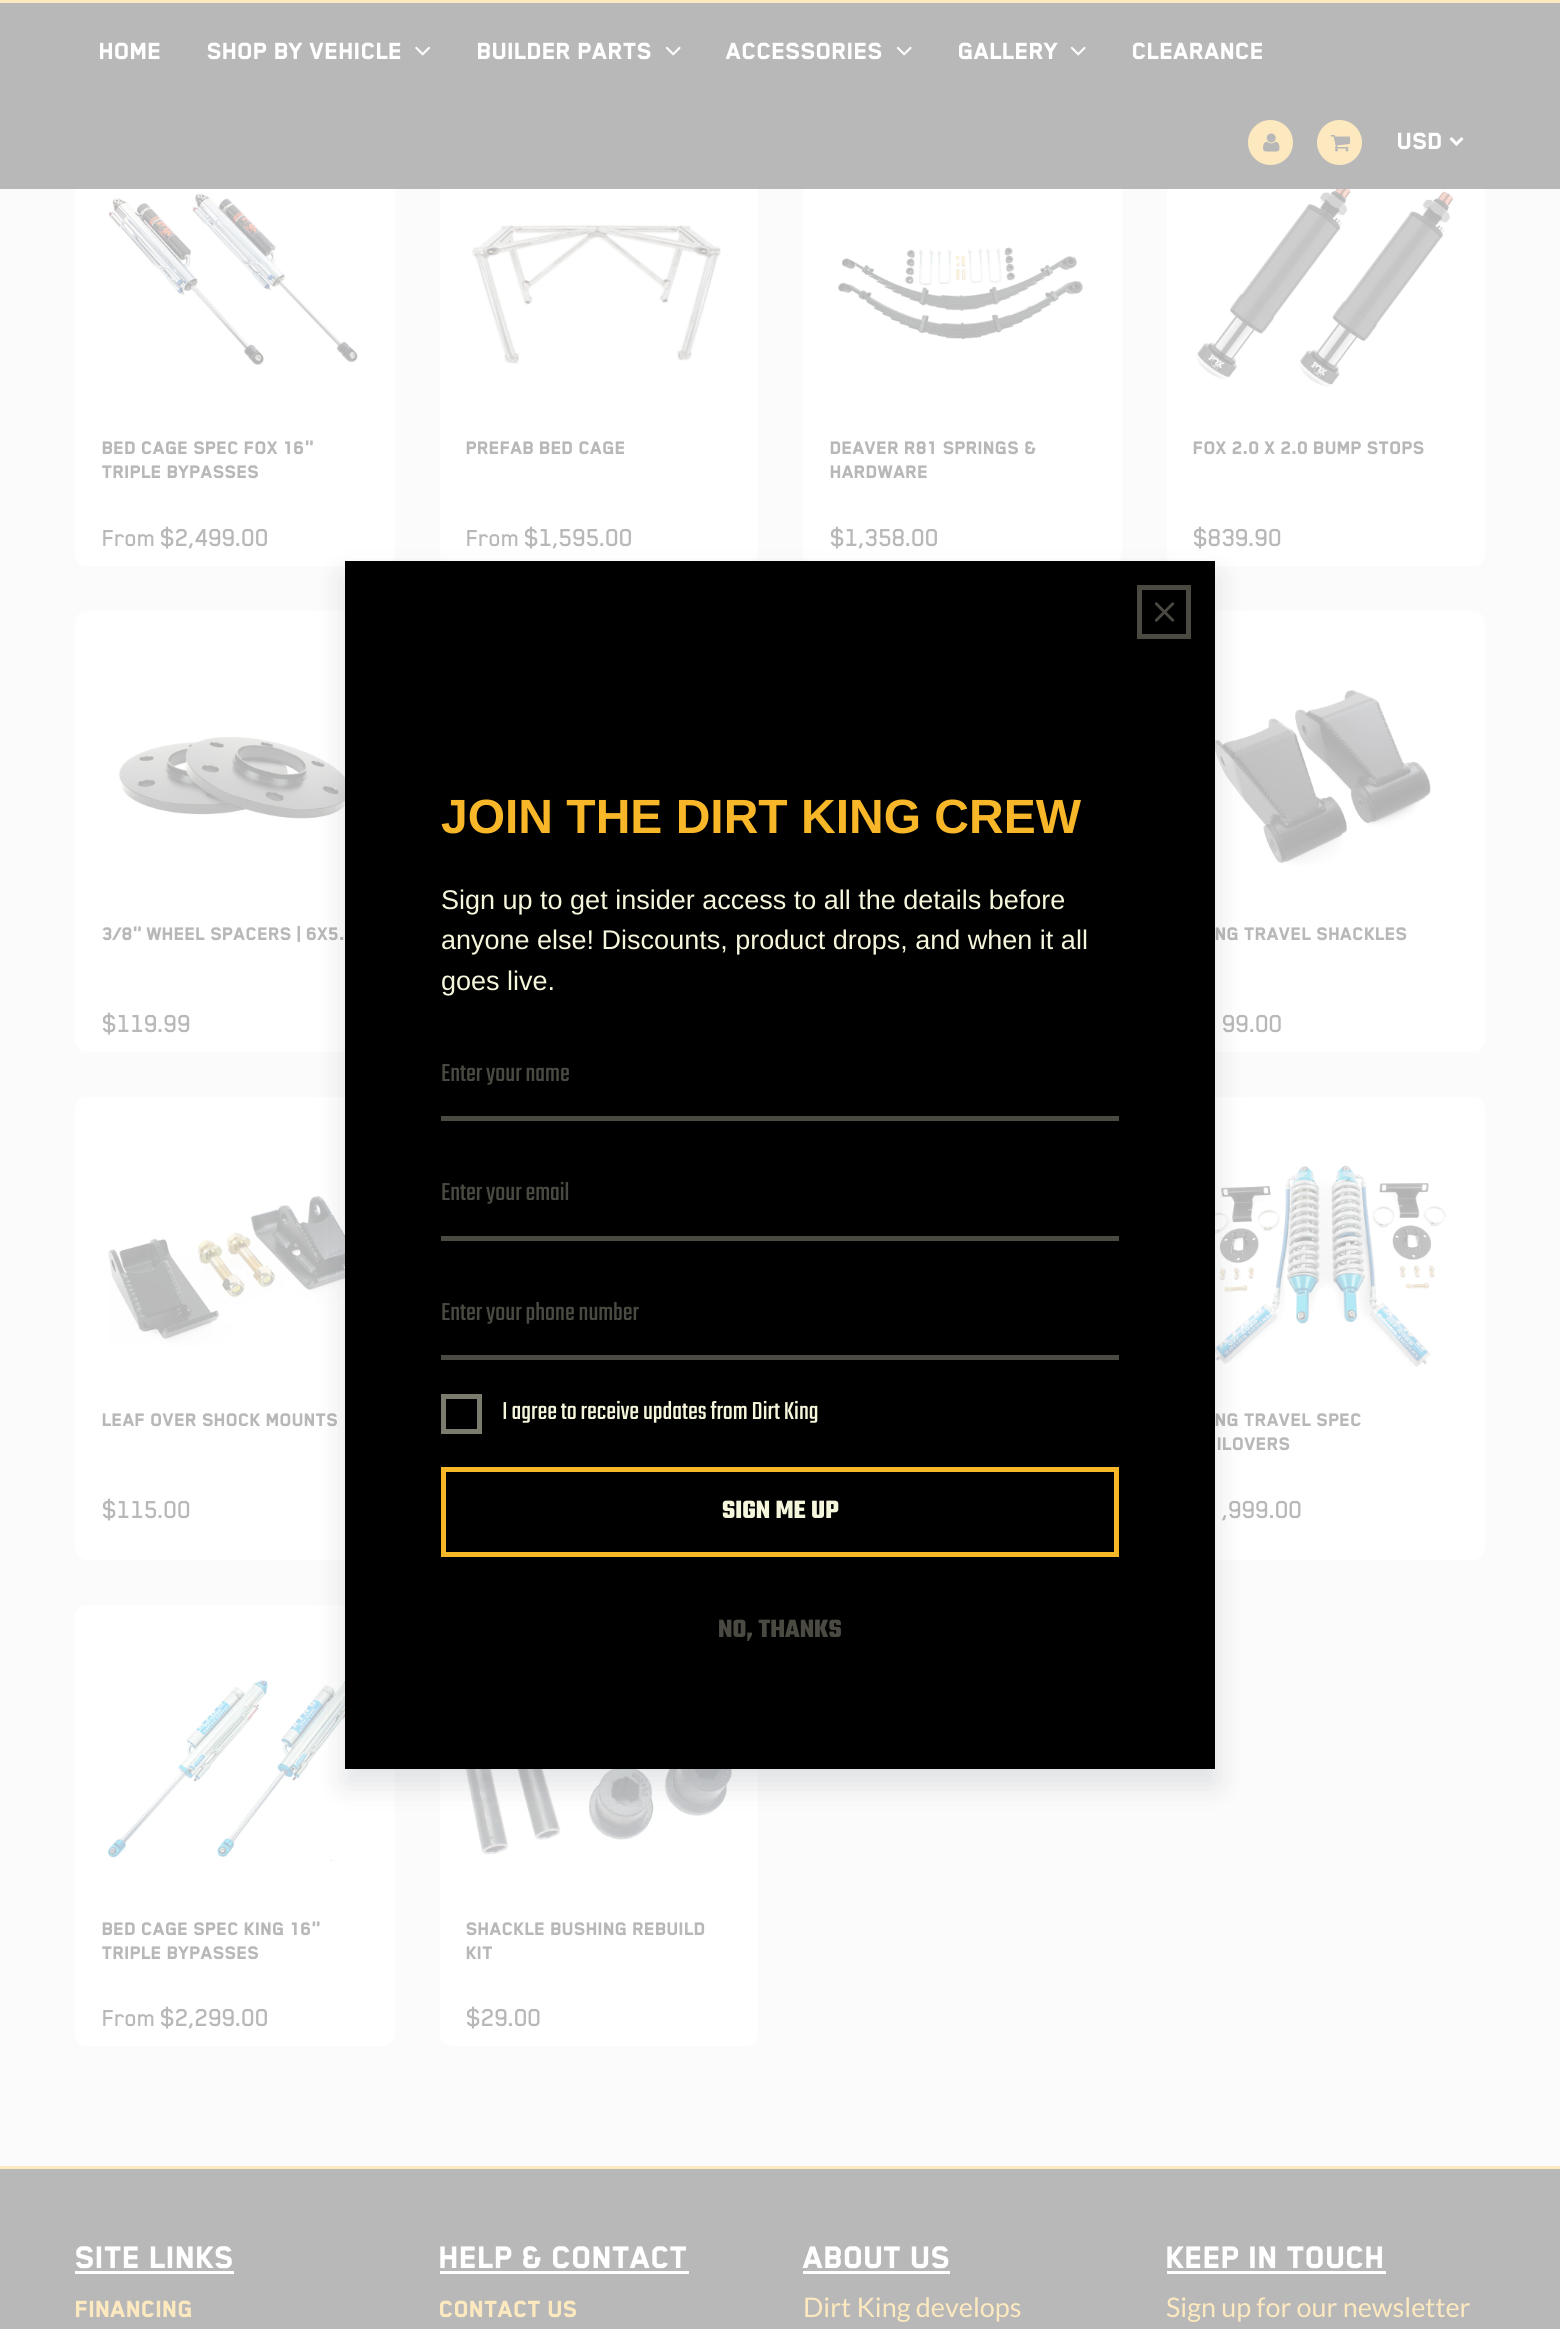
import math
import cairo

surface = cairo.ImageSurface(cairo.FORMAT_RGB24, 1560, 2329)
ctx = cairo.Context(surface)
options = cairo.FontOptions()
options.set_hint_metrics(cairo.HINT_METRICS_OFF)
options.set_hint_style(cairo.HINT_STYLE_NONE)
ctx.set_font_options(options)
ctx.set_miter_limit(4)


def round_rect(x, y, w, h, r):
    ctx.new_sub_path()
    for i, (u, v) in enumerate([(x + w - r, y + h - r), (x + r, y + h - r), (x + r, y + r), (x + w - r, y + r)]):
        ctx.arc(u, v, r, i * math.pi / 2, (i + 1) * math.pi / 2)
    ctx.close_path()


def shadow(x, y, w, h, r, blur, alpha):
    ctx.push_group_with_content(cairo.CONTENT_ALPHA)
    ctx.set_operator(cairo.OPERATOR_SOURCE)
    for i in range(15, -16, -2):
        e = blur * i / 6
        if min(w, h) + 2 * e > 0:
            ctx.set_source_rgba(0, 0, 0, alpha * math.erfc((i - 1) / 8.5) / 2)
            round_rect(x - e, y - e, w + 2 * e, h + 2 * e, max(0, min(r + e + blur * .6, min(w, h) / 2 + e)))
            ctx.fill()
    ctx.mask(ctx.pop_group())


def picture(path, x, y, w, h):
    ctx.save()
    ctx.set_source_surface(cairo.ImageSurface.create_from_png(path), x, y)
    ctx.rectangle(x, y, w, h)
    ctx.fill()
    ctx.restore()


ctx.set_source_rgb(0.984, 0.984, 0.984)
ctx.paint()
ctx.set_source_rgb(1, 1, 1)
round_rect(75, 125, 320, 441, 12)
ctx.fill()
round_rect(440, 125, 318, 441, 12)
ctx.fill()
round_rect(803, 125, 319, 441, 12)
ctx.fill()
round_rect(1167, 125, 318, 441, 12)
ctx.fill()
ctx.set_source_rgb(0.722, 0.722, 0.722)
ctx.rectangle(0, 3, 1560, 186)
ctx.fill()
ctx.set_source_rgb(0.992, 0.914, 0.749)
ctx.rectangle(0, 0, 1560, 3)
ctx.fill()
ctx.select_font_face("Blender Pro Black")
ctx.set_font_size(27)
ctx.set_source_rgb(1, 1, 1)
ctx.move_to(99, 59)
ctx.show_text("HOME")
ctx.move_to(207, 59)
ctx.show_text("SHOP BY VEHICLE")
picture("img1.png", 415, 46, 16, 10)
ctx.move_to(477, 59)
ctx.show_text("BUILDER PARTS")
picture("img2.png", 665, 46, 16, 10)
ctx.move_to(726, 59)
ctx.show_text("ACCESSORIES")
picture("img2.png", 896, 46, 16, 10)
ctx.move_to(958, 59)
ctx.show_text("GALLERY")
picture("img2.png", 1070, 46, 16, 10)
ctx.move_to(1132, 59)
ctx.show_text("CLEARANCE")
ctx.set_source_rgb(0.992, 0.914, 0.749)
ctx.new_path()
ctx.arc(1270.5, 142.5, 22.5, 0, 2 * math.pi)
ctx.fill()
picture("img3.png", 1263, 133, 17, 19)
ctx.arc(1339.5, 142.5, 22.5, 0, 2 * math.pi)
ctx.fill()
picture("img4.png", 1330, 135, 20, 17)
ctx.new_path()
ctx.move_to(1450.5, 138)
ctx.line_to(1456.5, 144)
ctx.line_to(1462.5, 138)
ctx.set_source_rgb(1, 1, 1)
ctx.set_line_width(3)
ctx.stroke()
ctx.move_to(1397, 149)
ctx.show_text("USD")
picture("img5.png", 108, 193, 250, 172)
ctx.set_font_size(21)
ctx.set_source_rgb(0.722, 0.722, 0.722)
ctx.move_to(102, 454)
ctx.show_text("BED CAGE SPEC FOX 16\"")
ctx.move_to(102, 478)
ctx.show_text("TRIPLE BYPASSES")
ctx.select_font_face("Blender Pro", cairo.FONT_SLANT_NORMAL, cairo.FONT_WEIGHT_BOLD)
ctx.set_font_size(25.5)
ctx.move_to(102, 546)
ctx.show_text("From")
ctx.set_font_size(27)
ctx.move_to(160, 546)
ctx.show_text("$2,499.00")
picture("img6.png", 471, 224, 250, 141)
ctx.select_font_face("Blender Pro Black")
ctx.set_font_size(21)
ctx.move_to(466, 454)
ctx.show_text("PREFAB BED CAGE")
ctx.select_font_face("Blender Pro", cairo.FONT_SLANT_NORMAL, cairo.FONT_WEIGHT_BOLD)
ctx.set_font_size(25.5)
ctx.move_to(466, 546)
ctx.show_text("From")
ctx.set_font_size(27)
ctx.move_to(524, 546)
ctx.show_text("$1,595.00")
picture("img7.png", 838, 247, 245, 93)
ctx.select_font_face("Blender Pro Black")
ctx.set_font_size(21)
ctx.move_to(830, 454)
ctx.show_text("DEAVER R81 SPRINGS &")
ctx.move_to(830, 478)
ctx.show_text("HARDWARE")
ctx.select_font_face("Blender Pro", cairo.FONT_SLANT_NORMAL, cairo.FONT_WEIGHT_BOLD)
ctx.set_font_size(27)
ctx.move_to(830, 546)
ctx.show_text("$1,358.00")
picture("img8.png", 1196, 189, 258, 198)
ctx.select_font_face("Blender Pro Black")
ctx.set_font_size(21)
ctx.move_to(1193, 454)
ctx.show_text("FOX 2.0 X 2.0 BUMP STOPS")
ctx.select_font_face("Blender Pro", cairo.FONT_SLANT_NORMAL, cairo.FONT_WEIGHT_BOLD)
ctx.set_font_size(27)
ctx.move_to(1193, 546)
ctx.show_text("$839.90")
ctx.set_source_rgb(1, 1, 1)
round_rect(75, 611, 320, 441, 12)
ctx.fill()
picture("img9.png", 118, 737, 227, 82)
ctx.select_font_face("Blender Pro Black")
ctx.set_font_size(21)
ctx.set_source_rgb(0.722, 0.722, 0.722)
ctx.move_to(102, 940)
ctx.show_text("3/8\" WHEEL SPACERS | 6X5.")
ctx.select_font_face("Blender Pro", cairo.FONT_SLANT_NORMAL, cairo.FONT_WEIGHT_BOLD)
ctx.set_font_size(27)
ctx.move_to(102, 1032)
ctx.show_text("$119.99")
ctx.set_source_rgb(1, 1, 1)
round_rect(1167, 611, 318, 441, 12)
ctx.fill()
picture("img10.png", 1215, 690, 216, 176)
ctx.select_font_face("Blender Pro Black")
ctx.set_font_size(21)
ctx.set_source_rgb(0.722, 0.722, 0.722)
ctx.move_to(1215, 940)
ctx.show_text("NG TRAVEL SHACKLES")
ctx.select_font_face("Blender Pro", cairo.FONT_SLANT_NORMAL, cairo.FONT_WEIGHT_BOLD)
ctx.set_font_size(27)
ctx.move_to(1222, 1032)
ctx.show_text("99.00")
ctx.set_source_rgb(1, 1, 1)
round_rect(75, 1097, 320, 463, 12)
ctx.fill()
picture("img11.png", 108, 1195, 237, 151)
ctx.select_font_face("Blender Pro Black")
ctx.set_font_size(21)
ctx.set_source_rgb(0.722, 0.722, 0.722)
ctx.move_to(102, 1426)
ctx.show_text("LEAF OVER SHOCK MOUNTS")
ctx.select_font_face("Blender Pro", cairo.FONT_SLANT_NORMAL, cairo.FONT_WEIGHT_BOLD)
ctx.set_font_size(27)
ctx.move_to(102, 1518)
ctx.show_text("$115.00")
ctx.set_source_rgb(1, 1, 1)
round_rect(1167, 1097, 318, 463, 12)
ctx.fill()
picture("img12.png", 1215, 1165, 231, 202)
ctx.select_font_face("Blender Pro Black")
ctx.set_font_size(21)
ctx.set_source_rgb(0.722, 0.722, 0.722)
ctx.move_to(1215, 1426)
ctx.show_text("NG TRAVEL SPEC")
ctx.move_to(1217, 1450)
ctx.show_text("ILOVERS")
ctx.select_font_face("Blender Pro", cairo.FONT_SLANT_NORMAL, cairo.FONT_WEIGHT_BOLD)
ctx.set_font_size(27)
ctx.move_to(1222, 1518)
ctx.show_text(",999.00")
ctx.set_source_rgb(1, 1, 1)
round_rect(75, 1605, 320, 441, 12)
ctx.fill()
picture("img13.png", 107, 1678, 252, 184)
ctx.select_font_face("Blender Pro Black")
ctx.set_font_size(21)
ctx.set_source_rgb(0.722, 0.722, 0.722)
ctx.move_to(102, 1935)
ctx.show_text("BED CAGE SPEC KING 16\"")
ctx.move_to(102, 1959)
ctx.show_text("TRIPLE BYPASSES")
ctx.select_font_face("Blender Pro", cairo.FONT_SLANT_NORMAL, cairo.FONT_WEIGHT_BOLD)
ctx.set_font_size(25.5)
ctx.move_to(102, 2026)
ctx.show_text("From")
ctx.set_font_size(27)
ctx.move_to(160, 2026)
ctx.show_text("$2,299.00")
ctx.set_source_rgb(1, 1, 1)
round_rect(440, 1605, 318, 441, 12)
ctx.fill()
picture("img14.png", 465, 1769, 268, 86)
ctx.select_font_face("Blender Pro Black")
ctx.set_font_size(21)
ctx.set_source_rgb(0.722, 0.722, 0.722)
ctx.move_to(466, 1935)
ctx.show_text("SHACKLE BUSHING REBUILD")
ctx.move_to(466, 1959)
ctx.show_text("KIT")
ctx.select_font_face("Blender Pro", cairo.FONT_SLANT_NORMAL, cairo.FONT_WEIGHT_BOLD)
ctx.set_font_size(27)
ctx.move_to(466, 2026)
ctx.show_text("$29.00")
ctx.set_source_rgb(0.212, 0.239, 0.302)
shadow(345, 576, 870, 1208, 0, 15, 0.15)
ctx.set_source_rgb(0, 0, 0)
ctx.rectangle(345, 561, 870, 1208)
ctx.fill()
ctx.rectangle(1139.5, 587.5, 49, 49)
ctx.set_source_rgb(0.29, 0.29, 0.259)
ctx.set_line_width(5)
ctx.stroke()
ctx.new_path()
ctx.move_to(1156.5, 602)
ctx.line_to(1155, 603)
ctx.line_to(1155, 604.5)
ctx.line_to(1162.5, 612)
ctx.line_to(1155, 619.5)
ctx.line_to(1155, 621)
ctx.line_to(1156.5, 622)
ctx.line_to(1164.5, 614)
ctx.line_to(1172.5, 622)
ctx.line_to(1174.5, 620)
ctx.line_to(1166.5, 612)
ctx.line_to(1174.5, 604)
ctx.line_to(1172.5, 602)
ctx.line_to(1164.5, 610)
ctx.close_path()
ctx.fill()
ctx.select_font_face("Liberation Sans", cairo.FONT_SLANT_NORMAL, cairo.FONT_WEIGHT_BOLD)
ctx.set_font_size(48)
ctx.set_source_rgb(0.969, 0.718, 0.157)
ctx.move_to(441, 833)
ctx.show_text("JOIN THE DIRT KING CREW")
ctx.select_font_face("Liberation Sans")
ctx.set_font_size(27)
ctx.set_source_rgb(0.961, 0.961, 0.863)
ctx.move_to(441, 909)
ctx.show_text("Sign up to get insider access to all the details before")
ctx.move_to(441, 949)
ctx.show_text("anyone else! Discounts, product drops, and when it all")
ctx.move_to(441, 990)
ctx.show_text("goes live.")
ctx.set_source_rgb(0.29, 0.29, 0.259)
ctx.rectangle(441, 1116, 678, 5)
ctx.fill()
ctx.select_font_face("Teko")
ctx.move_to(441, 1081)
ctx.show_text("Enter your name")
ctx.rectangle(441, 1236, 678, 5)
ctx.fill()
ctx.move_to(441, 1200)
ctx.show_text("Enter your email")
ctx.rectangle(441, 1355, 678, 5)
ctx.fill()
ctx.move_to(441, 1320)
ctx.show_text("Enter your phone number")
ctx.rectangle(443.5, 1396.5, 36, 35)
ctx.set_source_rgb(0.482, 0.482, 0.431)
ctx.stroke()
ctx.set_source_rgb(0.961, 0.961, 0.863)
ctx.move_to(502, 1419)
ctx.show_text("I agree to receive updates from Dirt King")
ctx.rectangle(443.5, 1469.5, 673, 85)
ctx.set_source_rgb(0.969, 0.718, 0.157)
ctx.stroke()
ctx.select_font_face("Teko", cairo.FONT_SLANT_NORMAL, cairo.FONT_WEIGHT_BOLD)
ctx.set_source_rgb(0.961, 0.961, 0.863)
ctx.move_to(722, 1518)
ctx.show_text("SIGN ME UP")
ctx.set_source_rgb(0.29, 0.29, 0.259)
ctx.move_to(718, 1637)
ctx.show_text("NO, THANKS")
ctx.set_source_rgb(0.722, 0.722, 0.722)
ctx.rectangle(0, 2169, 1560, 160)
ctx.fill()
ctx.set_source_rgb(0.992, 0.914, 0.749)
ctx.rectangle(0, 2166, 1560, 3)
ctx.fill()
ctx.select_font_face("Blender Pro Black")
ctx.set_font_size(36)
ctx.set_source_rgb(1, 1, 1)
ctx.move_to(75, 2268)
ctx.show_text("Site Links")
ctx.rectangle(75, 2271, 159, 3)
ctx.fill()
ctx.set_font_size(27)
ctx.set_source_rgb(0.992, 0.914, 0.749)
ctx.move_to(75, 2317)
ctx.show_text("Financing")
ctx.set_font_size(36)
ctx.set_source_rgb(1, 1, 1)
ctx.move_to(439, 2268)
ctx.show_text("Help & Contact")
ctx.rectangle(440, 2271, 249, 3)
ctx.fill()
ctx.set_font_size(27)
ctx.set_source_rgb(0.992, 0.914, 0.749)
ctx.move_to(439, 2317)
ctx.show_text("Contact Us")
ctx.set_font_size(36)
ctx.set_source_rgb(1, 1, 1)
ctx.move_to(803, 2268)
ctx.show_text("About Us")
ctx.rectangle(803, 2271, 147, 3)
ctx.fill()
ctx.select_font_face("Lato")
ctx.set_font_size(27)
ctx.set_source_rgb(0.992, 0.914, 0.749)
ctx.move_to(803, 2317)
ctx.show_text("Dirt King develops")
ctx.select_font_face("Blender Pro Black")
ctx.set_font_size(36)
ctx.set_source_rgb(1, 1, 1)
ctx.move_to(1166, 2268)
ctx.show_text("Keep in Touch")
ctx.rectangle(1167, 2271, 219, 3)
ctx.fill()
ctx.select_font_face("Lato")
ctx.set_font_size(27)
ctx.set_source_rgb(0.992, 0.914, 0.749)
ctx.move_to(1166, 2317)
ctx.show_text("Sign up for our newsletter")
surface.write_to_png("page.png")
